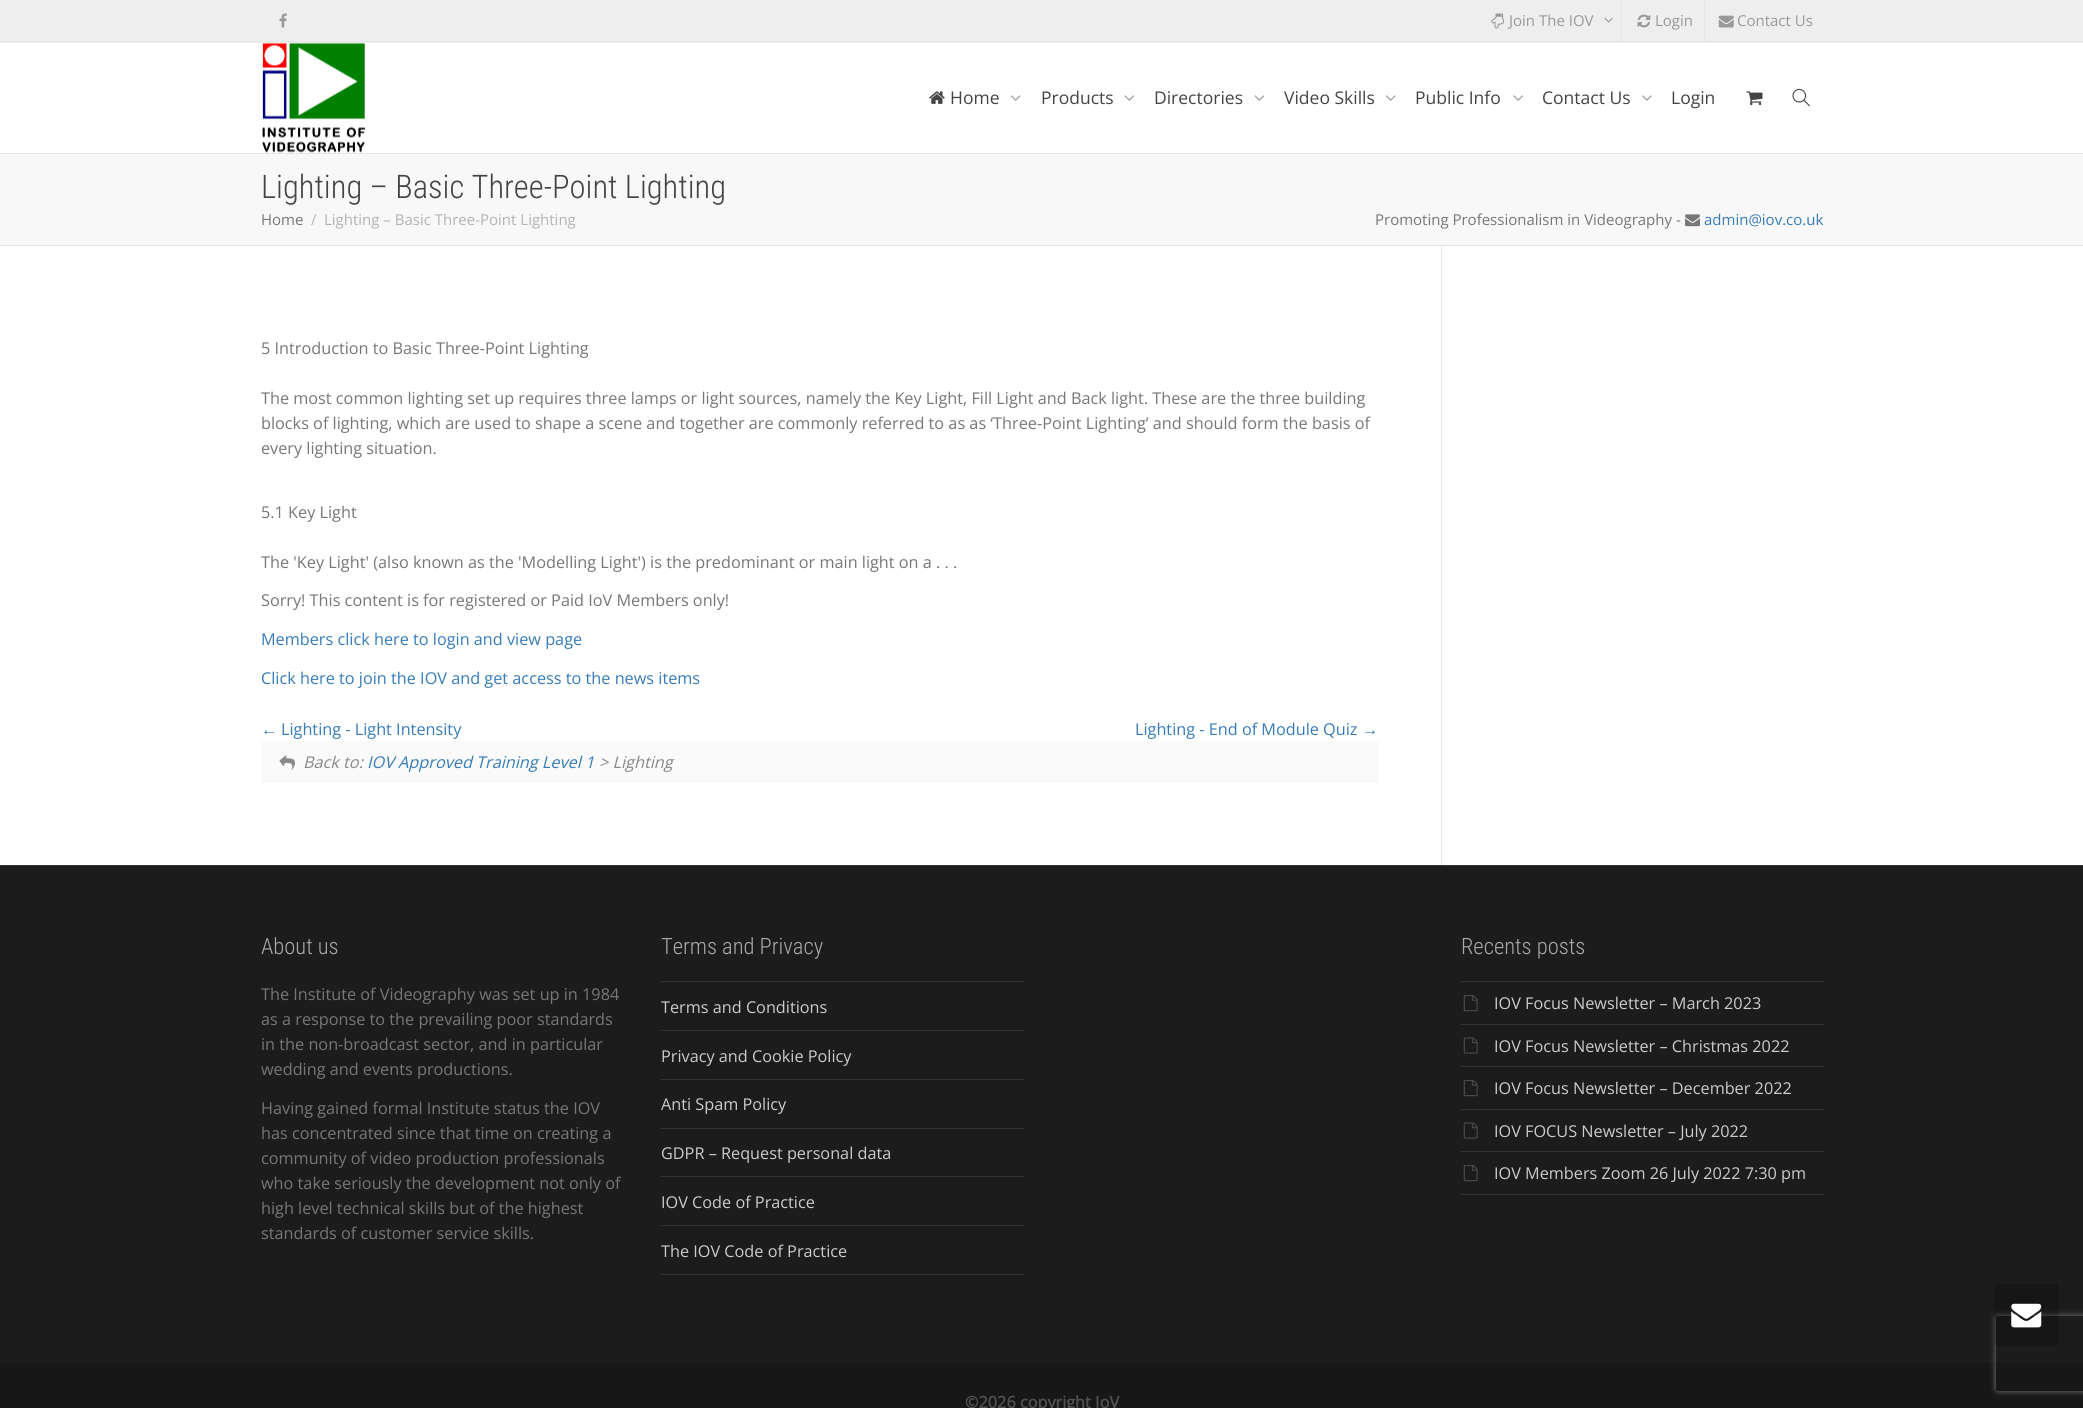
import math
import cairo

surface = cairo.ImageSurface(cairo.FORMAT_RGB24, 2083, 1408)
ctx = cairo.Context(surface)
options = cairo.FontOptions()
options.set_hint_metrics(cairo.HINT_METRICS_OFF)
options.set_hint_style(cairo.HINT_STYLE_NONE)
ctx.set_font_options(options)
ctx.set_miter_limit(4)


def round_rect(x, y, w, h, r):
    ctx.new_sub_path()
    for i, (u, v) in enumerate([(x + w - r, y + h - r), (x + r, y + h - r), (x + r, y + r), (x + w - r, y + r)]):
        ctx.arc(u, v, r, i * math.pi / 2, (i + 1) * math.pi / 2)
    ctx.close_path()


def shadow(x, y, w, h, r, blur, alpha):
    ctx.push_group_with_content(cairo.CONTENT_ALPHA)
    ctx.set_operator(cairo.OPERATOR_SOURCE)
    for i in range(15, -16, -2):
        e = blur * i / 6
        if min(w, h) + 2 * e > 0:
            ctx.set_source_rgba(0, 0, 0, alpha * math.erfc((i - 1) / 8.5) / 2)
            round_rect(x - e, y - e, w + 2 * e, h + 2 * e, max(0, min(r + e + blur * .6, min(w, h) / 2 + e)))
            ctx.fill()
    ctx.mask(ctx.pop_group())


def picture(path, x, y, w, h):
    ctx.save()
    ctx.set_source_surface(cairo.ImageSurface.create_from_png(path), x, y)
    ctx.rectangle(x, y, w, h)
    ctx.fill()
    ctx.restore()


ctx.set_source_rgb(1, 1, 1)
ctx.paint()
ctx.set_source_rgb(0.933, 0.933, 0.933)
ctx.rectangle(0, 0, 2083, 43)
ctx.fill()
ctx.set_source_rgb(0.898, 0.898, 0.898)
ctx.rectangle(0, 41, 2083, 1)
ctx.fill()
picture("img1.png", 279, 13, 8, 15)
ctx.rectangle(1621, 0, 1, 41)
ctx.fill()
picture("img2.png", 1491, 13, 14, 16)
ctx.select_font_face("Open Sans")
ctx.set_font_size(15)
ctx.set_source_rgb(0.6, 0.6, 0.6)
ctx.move_to(1509, 26)
ctx.show_text("Join The IOV")
picture("img3.png", 1604, 17, 9, 6)
ctx.set_source_rgb(0.898, 0.898, 0.898)
ctx.rectangle(1704, 0, 1, 41)
ctx.fill()
picture("img4.png", 1637, 14, 14, 14)
ctx.set_source_rgb(0.6, 0.6, 0.6)
ctx.move_to(1655, 26)
ctx.show_text("Login")
picture("img5.png", 1718, 15, 16, 13)
ctx.move_to(1737, 26)
ctx.show_text("Contact Us")
ctx.set_source_rgb(0.898, 0.898, 0.898)
ctx.rectangle(0, 153, 2083, 1)
ctx.fill()
picture("img6.png", 262, 43, 103, 110)
picture("img7.png", 929, 91, 16, 13)
ctx.set_font_size(17.5)
ctx.set_source_rgb(0.267, 0.267, 0.267)
ctx.move_to(950, 104)
ctx.show_text("Home")
picture("img8.png", 1010, 95, 11, 6)
ctx.move_to(1041, 104)
ctx.show_text("Products")
picture("img9.png", 1124, 95, 11, 6)
ctx.move_to(1154, 104)
ctx.show_text("Directories")
picture("img9.png", 1254, 95, 11, 6)
ctx.move_to(1284, 104)
ctx.show_text("Video Skills")
picture("img8.png", 1385, 95, 11, 6)
ctx.move_to(1415, 104)
ctx.show_text("Public Info")
picture("img10.png", 1513, 95, 10, 6)
ctx.move_to(1542, 104)
ctx.show_text("Contact Us")
picture("img11.png", 1642, 95, 10, 6)
ctx.move_to(1671, 104)
ctx.show_text("Login")
picture("img12.png", 1746, 91, 17, 15)
picture("img13.png", 1792, 88, 18, 19)
ctx.set_source_rgb(0.969, 0.969, 0.969)
ctx.rectangle(0, 154, 2083, 91)
ctx.fill()
ctx.set_source_rgb(0.898, 0.898, 0.898)
ctx.rectangle(0, 245, 2083, 1)
ctx.fill()
ctx.select_font_face("Roboto Condensed Light")
ctx.set_font_size(32.5)
ctx.set_source_rgb(0.267, 0.267, 0.267)
ctx.move_to(261, 198)
ctx.show_text("Lighting – Basic Three-Point Lighting")
ctx.select_font_face("Open Sans")
ctx.set_font_size(15)
ctx.set_source_rgb(0.467, 0.467, 0.467)
ctx.move_to(261, 225)
ctx.show_text("Home")
ctx.set_source_rgb(0.702, 0.702, 0.702)
ctx.move_to(311, 225)
ctx.show_text("/")
ctx.move_to(324, 225)
ctx.show_text("Lighting – Basic Three-Point Lighting")
ctx.set_source_rgb(0.467, 0.467, 0.467)
ctx.move_to(1375, 225)
ctx.show_text("Promoting Professionalism in Videography -")
picture("img14.png", 1685, 214, 15, 13)
ctx.set_source_rgb(0.212, 0.482, 0.718)
ctx.move_to(1704, 225)
ctx.show_text("admin@iov.co.uk")
ctx.set_source_rgb(0.898, 0.898, 0.898)
ctx.rectangle(1441, 246, 1, 619)
ctx.fill()
ctx.set_font_size(16.25)
ctx.set_source_rgb(0.467, 0.467, 0.467)
ctx.move_to(261, 354)
ctx.show_text("5 Introduction to Basic Three-Point Lighting")
ctx.move_to(261, 404)
ctx.show_text("The most common lighting set up requires three lamps or light sources, namely the Key Light, Fill Light and Back light. These are the three building")
ctx.move_to(261, 429)
ctx.show_text("blocks of lighting, which are used to shape a scene and together are commonly referred to as as ‘Three-Point Lighting’ and should form the basis of")
ctx.move_to(261, 454)
ctx.show_text("every lighting situation.")
ctx.move_to(261, 518)
ctx.show_text("5.1 Key Light")
ctx.move_to(261, 568)
ctx.show_text("The 'Key Light' (also known as the 'Modelling Light') is the predominant or main light on a . . .")
ctx.move_to(261, 606)
ctx.show_text("Sorry! This content is for registered or Paid IoV Members only!")
ctx.set_source_rgb(0.212, 0.482, 0.718)
ctx.move_to(261, 645)
ctx.show_text("Members click here to login and view page")
ctx.move_to(261, 684)
ctx.show_text("Click here to join the IOV and get access to the news items")
ctx.select_font_face("Liberation Serif")
ctx.move_to(261, 735)
ctx.show_text("←")
ctx.select_font_face("Open Sans")
ctx.move_to(281, 735)
ctx.show_text("Lighting - Light Intensity")
ctx.move_to(1135, 735)
ctx.show_text("Lighting - End of Module Quiz")
ctx.select_font_face("Liberation Serif")
ctx.move_to(1362, 735)
ctx.show_text("→")
ctx.set_source_rgb(0.98, 0.98, 0.98)
ctx.rectangle(261, 741, 1118, 42)
ctx.fill()
picture("img15.png", 279, 755, 16, 15)
ctx.select_font_face("Open Sans", cairo.FONT_SLANT_ITALIC)
ctx.set_source_rgb(0.533, 0.533, 0.533)
ctx.move_to(303, 768)
ctx.show_text("Back to:")
ctx.set_source_rgb(0.212, 0.482, 0.718)
ctx.move_to(367, 768)
ctx.show_text("IOV Approved Training Level 1")
ctx.set_source_rgb(0.533, 0.533, 0.533)
ctx.move_to(599, 768)
ctx.show_text("> Lighting")
ctx.set_source_rgb(0.11, 0.11, 0.11)
ctx.rectangle(0, 866, 2083, 497)
ctx.fill()
ctx.set_source_rgb(0.2, 0.2, 0.2)
ctx.rectangle(0, 865, 2083, 1)
ctx.fill()
ctx.select_font_face("Roboto Condensed Light")
ctx.set_font_size(22.5)
ctx.set_source_rgb(0.667, 0.667, 0.667)
ctx.move_to(261, 954)
ctx.show_text("About us")
ctx.select_font_face("Open Sans")
ctx.set_font_size(16.25)
ctx.set_source_rgb(0.467, 0.467, 0.467)
ctx.move_to(261, 1000)
ctx.show_text("The Institute of Videography was set up in 1984")
ctx.move_to(261, 1025)
ctx.show_text("as a response to the prevailing poor standards")
ctx.move_to(261, 1050)
ctx.show_text("in the non-broadcast sector, and in particular")
ctx.move_to(261, 1075)
ctx.show_text("wedding and events productions.")
ctx.move_to(261, 1114)
ctx.show_text("Having gained formal Institute status the IOV")
ctx.move_to(261, 1139)
ctx.show_text("has concentrated since that time on creating a")
ctx.move_to(261, 1164)
ctx.show_text("community of video production professionals")
ctx.move_to(261, 1189)
ctx.show_text("who take seriously the development not only of")
ctx.move_to(261, 1214)
ctx.show_text("high level technical skills but of the highest")
ctx.move_to(261, 1239)
ctx.show_text("standards of customer service skills.")
ctx.select_font_face("Roboto Condensed Light")
ctx.set_font_size(22.5)
ctx.set_source_rgb(0.667, 0.667, 0.667)
ctx.move_to(661, 954)
ctx.show_text("Terms and Privacy")
ctx.set_source_rgb(0.2, 0.2, 0.2)
ctx.rectangle(661, 981, 363, 1)
ctx.fill()
ctx.rectangle(661, 1030, 363, 1)
ctx.fill()
ctx.select_font_face("Open Sans")
ctx.set_font_size(16.25)
ctx.set_source_rgb(0.8, 0.8, 0.8)
ctx.move_to(661, 1013)
ctx.show_text("Terms and Conditions")
ctx.set_source_rgb(0.2, 0.2, 0.2)
ctx.rectangle(661, 1079, 363, 1)
ctx.fill()
ctx.set_source_rgb(0.8, 0.8, 0.8)
ctx.move_to(661, 1062)
ctx.show_text("Privacy and Cookie Policy")
ctx.set_source_rgb(0.2, 0.2, 0.2)
ctx.rectangle(661, 1128, 363, 1)
ctx.fill()
ctx.set_source_rgb(0.8, 0.8, 0.8)
ctx.move_to(661, 1110)
ctx.show_text("Anti Spam Policy")
ctx.set_source_rgb(0.2, 0.2, 0.2)
ctx.rectangle(661, 1176, 363, 1)
ctx.fill()
ctx.set_source_rgb(0.8, 0.8, 0.8)
ctx.move_to(661, 1159)
ctx.show_text("GDPR – Request personal data")
ctx.set_source_rgb(0.2, 0.2, 0.2)
ctx.rectangle(661, 1225, 363, 1)
ctx.fill()
ctx.set_source_rgb(0.8, 0.8, 0.8)
ctx.move_to(661, 1208)
ctx.show_text("IOV Code of Practice")
ctx.set_source_rgb(0.2, 0.2, 0.2)
ctx.rectangle(661, 1274, 363, 1)
ctx.fill()
ctx.set_source_rgb(0.8, 0.8, 0.8)
ctx.move_to(661, 1257)
ctx.show_text("The IOV Code of Practice")
ctx.select_font_face("Roboto Condensed Light")
ctx.set_font_size(22.5)
ctx.set_source_rgb(0.667, 0.667, 0.667)
ctx.move_to(1461, 954)
ctx.show_text("Recents posts")
ctx.set_source_rgb(0.2, 0.2, 0.2)
ctx.rectangle(1461, 981, 363, 1)
ctx.fill()
ctx.rectangle(1461, 1024, 363, 1)
ctx.fill()
picture("img16.png", 1463, 995, 15, 17)
ctx.select_font_face("Open Sans")
ctx.set_font_size(16.25)
ctx.set_source_rgb(0.8, 0.8, 0.8)
ctx.move_to(1494, 1009)
ctx.show_text("IOV Focus Newsletter – March 2023")
ctx.set_source_rgb(0.2, 0.2, 0.2)
ctx.rectangle(1461, 1066, 363, 1)
ctx.fill()
picture("img17.png", 1463, 1037, 15, 17)
ctx.set_source_rgb(0.8, 0.8, 0.8)
ctx.move_to(1494, 1052)
ctx.show_text("IOV Focus Newsletter – Christmas 2022")
ctx.set_source_rgb(0.2, 0.2, 0.2)
ctx.rectangle(1461, 1109, 363, 1)
ctx.fill()
picture("img16.png", 1463, 1080, 15, 17)
ctx.set_source_rgb(0.8, 0.8, 0.8)
ctx.move_to(1494, 1094)
ctx.show_text("IOV Focus Newsletter – December 2022")
ctx.set_source_rgb(0.2, 0.2, 0.2)
ctx.rectangle(1461, 1151, 363, 1)
ctx.fill()
picture("img17.png", 1463, 1122, 15, 17)
ctx.set_source_rgb(0.8, 0.8, 0.8)
ctx.move_to(1494, 1137)
ctx.show_text("IOV FOCUS Newsletter – July 2022")
ctx.set_source_rgb(0.2, 0.2, 0.2)
ctx.rectangle(1461, 1194, 363, 1)
ctx.fill()
picture("img16.png", 1463, 1165, 15, 17)
ctx.set_source_rgb(0.8, 0.8, 0.8)
ctx.move_to(1494, 1179)
ctx.show_text("IOV Members Zoom 26 July 2022 7:30 pm")
ctx.set_source_rgb(0.09, 0.09, 0.09)
ctx.rectangle(0, 1363, 2083, 45)
ctx.fill()
ctx.save()
ctx.set_fill_rule(cairo.FILL_RULE_EVEN_ODD)
ctx.new_path()
ctx.move_to(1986, 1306)
ctx.line_to(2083, 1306)
ctx.line_to(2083, 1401)
ctx.line_to(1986, 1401)
ctx.close_path()
ctx.move_to(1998.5, 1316)
ctx.line_to(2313.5, 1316)
ctx.curve_to(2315, 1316, 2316, 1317, 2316, 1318.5)
ctx.line_to(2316, 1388.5)
ctx.curve_to(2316, 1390, 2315, 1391, 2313.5, 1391)
ctx.line_to(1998.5, 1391)
ctx.curve_to(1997, 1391, 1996, 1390, 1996, 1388.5)
ctx.line_to(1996, 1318.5)
ctx.curve_to(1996, 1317, 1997, 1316, 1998.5, 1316)
ctx.close_path()
ctx.clip()
ctx.set_source_rgb(0.502, 0.502, 0.502)
shadow(1996, 1316, 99, 75, 2.5, 3, 1)
ctx.restore()
ctx.set_source_rgba(0, 0, 0, 0.2)
round_rect(1994, 1284, 65, 62, 4)
ctx.fill()
picture("img18.png", 2011, 1303, 31, 25)
ctx.select_font_face("Open Sans", cairo.FONT_SLANT_NORMAL, cairo.FONT_WEIGHT_BOLD)
ctx.set_source_rgb(0.318, 0.318, 0.318)
ctx.move_to(965, 1408)
ctx.show_text("©2026 copyright IoV")
surface.write_to_png("page.png")
